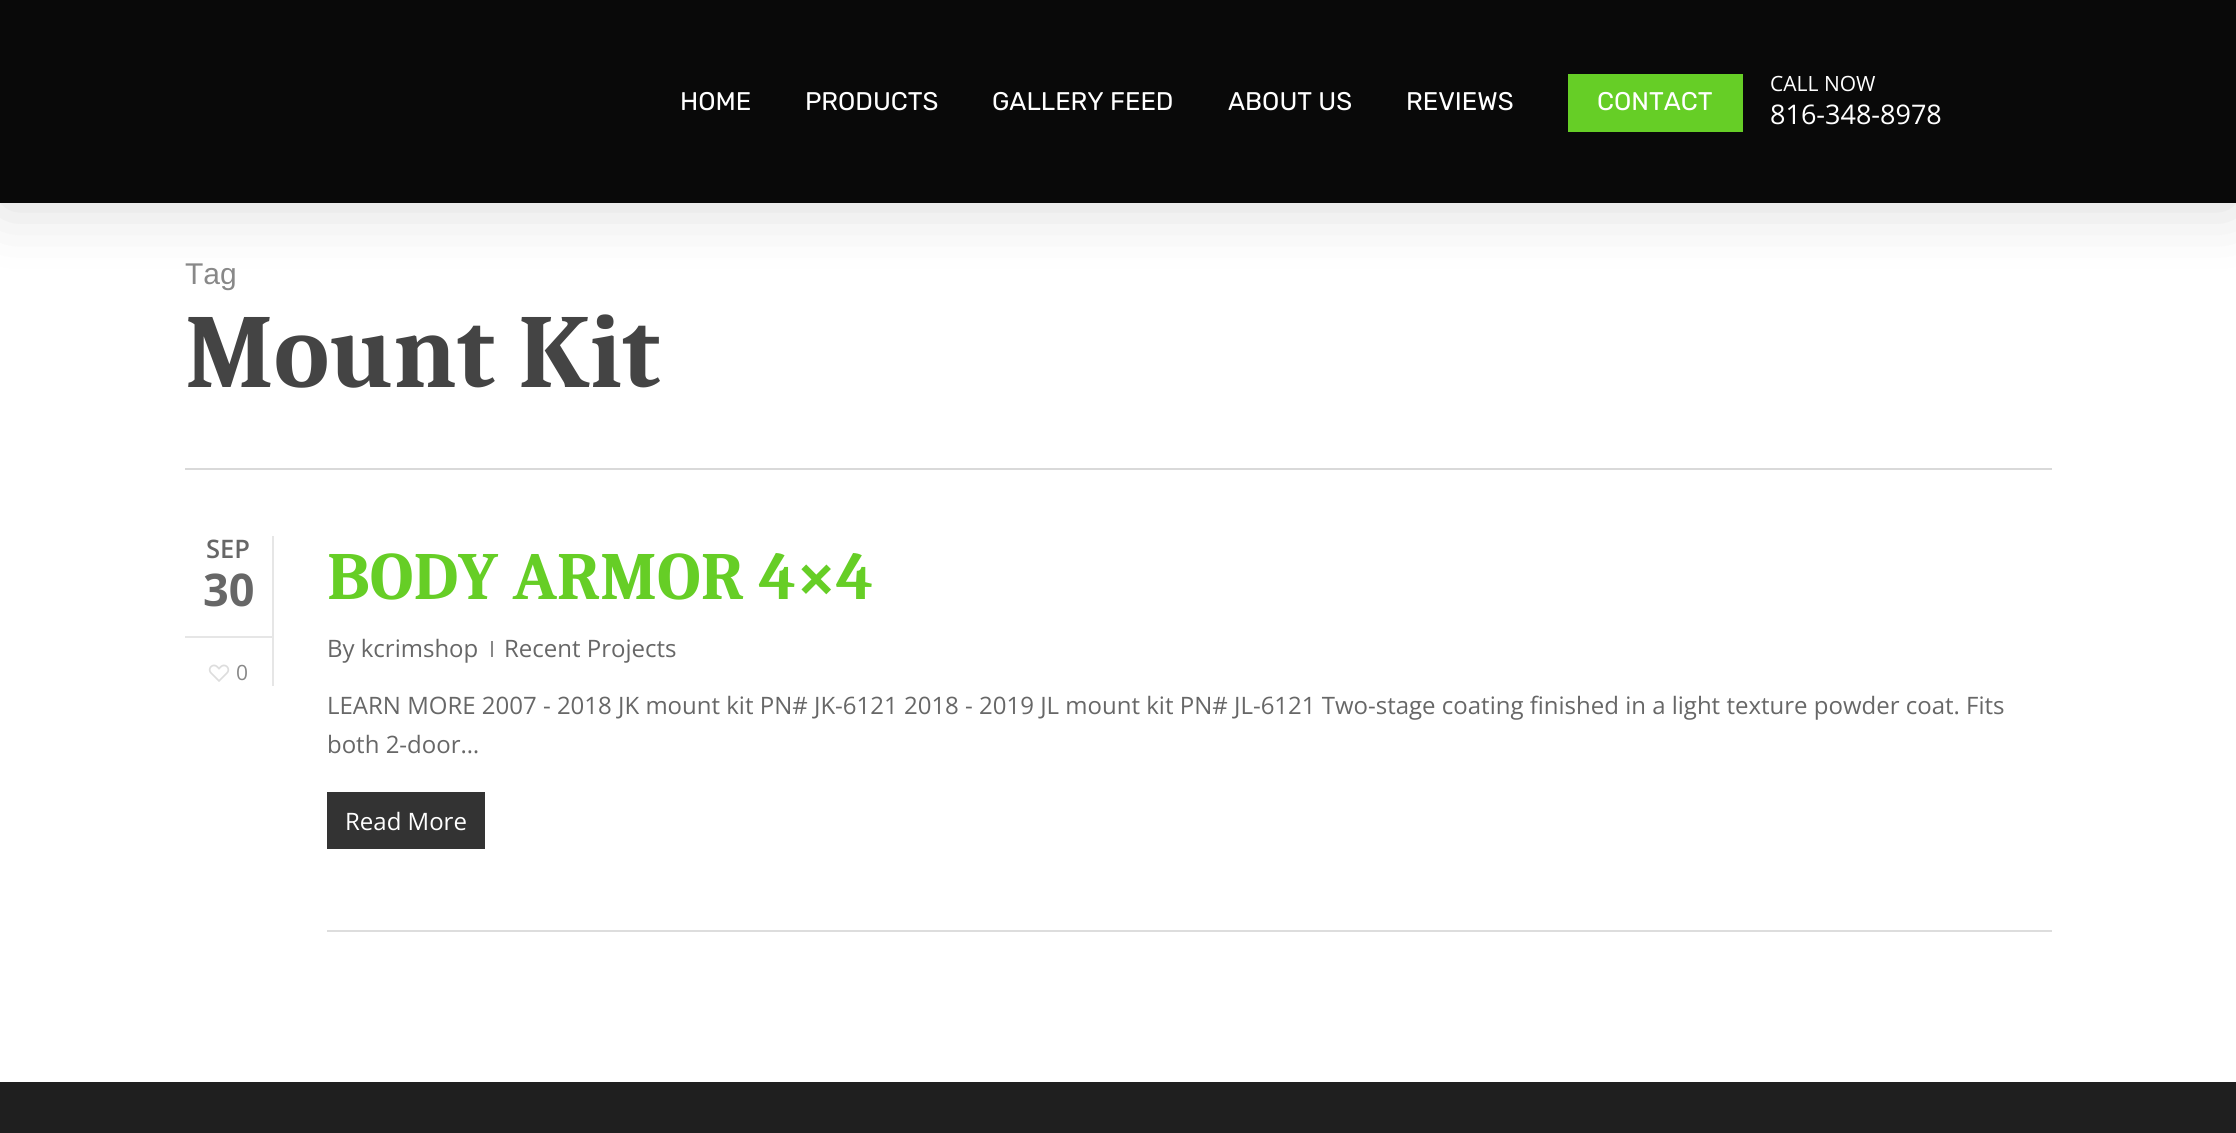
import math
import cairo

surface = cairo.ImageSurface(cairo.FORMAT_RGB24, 2236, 1133)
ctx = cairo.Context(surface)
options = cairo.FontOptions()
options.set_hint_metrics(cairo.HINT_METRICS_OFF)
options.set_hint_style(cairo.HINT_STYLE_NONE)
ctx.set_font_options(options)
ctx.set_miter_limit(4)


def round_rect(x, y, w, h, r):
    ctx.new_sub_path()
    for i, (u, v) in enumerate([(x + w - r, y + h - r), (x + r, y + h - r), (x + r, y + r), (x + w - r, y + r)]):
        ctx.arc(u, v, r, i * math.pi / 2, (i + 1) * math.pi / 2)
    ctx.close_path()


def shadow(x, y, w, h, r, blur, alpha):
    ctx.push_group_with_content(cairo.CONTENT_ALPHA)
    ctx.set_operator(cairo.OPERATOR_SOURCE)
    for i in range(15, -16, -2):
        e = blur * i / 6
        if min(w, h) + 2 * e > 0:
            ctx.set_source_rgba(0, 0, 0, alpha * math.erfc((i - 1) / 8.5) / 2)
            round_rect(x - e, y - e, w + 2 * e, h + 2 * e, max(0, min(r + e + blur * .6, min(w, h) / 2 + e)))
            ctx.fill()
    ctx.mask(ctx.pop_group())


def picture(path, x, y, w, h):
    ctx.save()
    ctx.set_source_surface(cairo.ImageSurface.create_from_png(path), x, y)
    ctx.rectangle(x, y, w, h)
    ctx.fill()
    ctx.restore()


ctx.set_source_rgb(1, 1, 1)
ctx.paint()
ctx.set_source_rgb(0.039, 0.039, 0.039)
ctx.rectangle(0, 0, 2236, 203)
ctx.fill()
ctx.save()
ctx.set_fill_rule(cairo.FILL_RULE_EVEN_ODD)
ctx.new_path()
ctx.move_to(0, 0)
ctx.line_to(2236, 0)
ctx.line_to(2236, 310)
ctx.line_to(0, 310)
ctx.close_path()
ctx.move_to(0, 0)
ctx.line_to(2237, 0)
ctx.line_to(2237, 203)
ctx.line_to(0, 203)
ctx.close_path()
ctx.clip()
ctx.set_source_rgb(0, 0, 0)
shadow(0, 5, 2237, 202, 0, 34, 0.15)
ctx.restore()
ctx.select_font_face("Rubik")
ctx.set_font_size(25.5)
ctx.set_source_rgb(1, 1, 1)
ctx.move_to(680, 110)
ctx.show_text("HOME")
ctx.move_to(805, 110)
ctx.show_text("PRODUCTS")
ctx.move_to(992, 110)
ctx.show_text("GALLERY FEED")
ctx.move_to(1228, 110)
ctx.show_text("ABOUT US")
ctx.move_to(1406, 110)
ctx.show_text("REVIEWS")
ctx.set_source_rgb(0.4, 0.808, 0.149)
ctx.rectangle(1568, 74, 175, 58)
ctx.fill()
ctx.set_source_rgb(1, 1, 1)
ctx.move_to(1597, 110)
ctx.show_text("CONTACT")
ctx.select_font_face("Open Sans")
ctx.set_font_size(21)
ctx.move_to(1770, 91)
ctx.show_text("CALL NOW")
ctx.set_font_size(27)
ctx.move_to(1770, 124)
ctx.show_text("816-348-8978")
ctx.set_source_rgb(0.851, 0.851, 0.851)
ctx.rectangle(185, 468, 1867, 2)
ctx.fill()
ctx.select_font_face("Liberation Sans")
ctx.set_font_size(30)
ctx.set_source_rgb(0.533, 0.533, 0.533)
ctx.move_to(185, 284)
ctx.show_text("Tag")
ctx.select_font_face("Caladea", cairo.FONT_SLANT_NORMAL, cairo.FONT_WEIGHT_BOLD)
ctx.set_font_size(105)
ctx.set_source_rgb(0.267, 0.267, 0.267)
ctx.move_to(185, 387)
ctx.show_text("Mount Kit")
ctx.set_source_rgb(0.902, 0.902, 0.902)
ctx.rectangle(272, 536, 2, 150)
ctx.fill()
ctx.rectangle(185, 636, 87, 2)
ctx.fill()
ctx.select_font_face("Open Sans SemiBold")
ctx.set_font_size(25.5)
ctx.set_source_rgb(0.404, 0.404, 0.404)
ctx.move_to(206, 558)
ctx.show_text("SEP")
ctx.select_font_face("Open Sans", cairo.FONT_SLANT_NORMAL, cairo.FONT_WEIGHT_BOLD)
ctx.set_font_size(45)
ctx.move_to(203, 606)
ctx.show_text("30")
picture("img1.png", 208, 664, 22, 18)
ctx.select_font_face("Open Sans")
ctx.set_font_size(21)
ctx.set_source_rgb(0.533, 0.533, 0.533)
ctx.move_to(236, 680)
ctx.show_text("0")
ctx.set_source_rgb(0.867, 0.867, 0.867)
ctx.rectangle(327, 930, 1725, 2)
ctx.fill()
ctx.select_font_face("Caladea", cairo.FONT_SLANT_NORMAL, cairo.FONT_WEIGHT_BOLD)
ctx.set_font_size(67.5)
ctx.set_source_rgb(0.4, 0.808, 0.149)
ctx.move_to(327, 599)
ctx.show_text("BODY ARMOR 4×4")
ctx.select_font_face("Open Sans")
ctx.set_font_size(24)
ctx.set_source_rgb(0.404, 0.404, 0.404)
ctx.move_to(327, 657)
ctx.show_text("By kcrimshop")
ctx.set_source_rgb(0.533, 0.533, 0.533)
ctx.rectangle(491, 641, 2, 16)
ctx.fill()
ctx.set_source_rgb(0.404, 0.404, 0.404)
ctx.move_to(504, 657)
ctx.show_text("Recent Projects")
ctx.move_to(327, 714)
ctx.show_text("LEARN MORE 2007 - 2018 JK mount kit PN# JK-6121 2018 - 2019 JL mount kit PN# JL-6121 Two-stage coating finished in a light texture powder coat. Fits")
ctx.move_to(327, 753)
ctx.show_text("both 2-door…")
ctx.set_source_rgb(0.2, 0.2, 0.2)
ctx.rectangle(327, 792, 158, 57)
ctx.fill()
ctx.set_source_rgb(1, 1, 1)
ctx.move_to(345, 830)
ctx.show_text("Read More")
ctx.set_source_rgb(0.122, 0.122, 0.122)
ctx.rectangle(0, 1082, 2236, 51)
ctx.fill()
surface.write_to_png("page.png")
